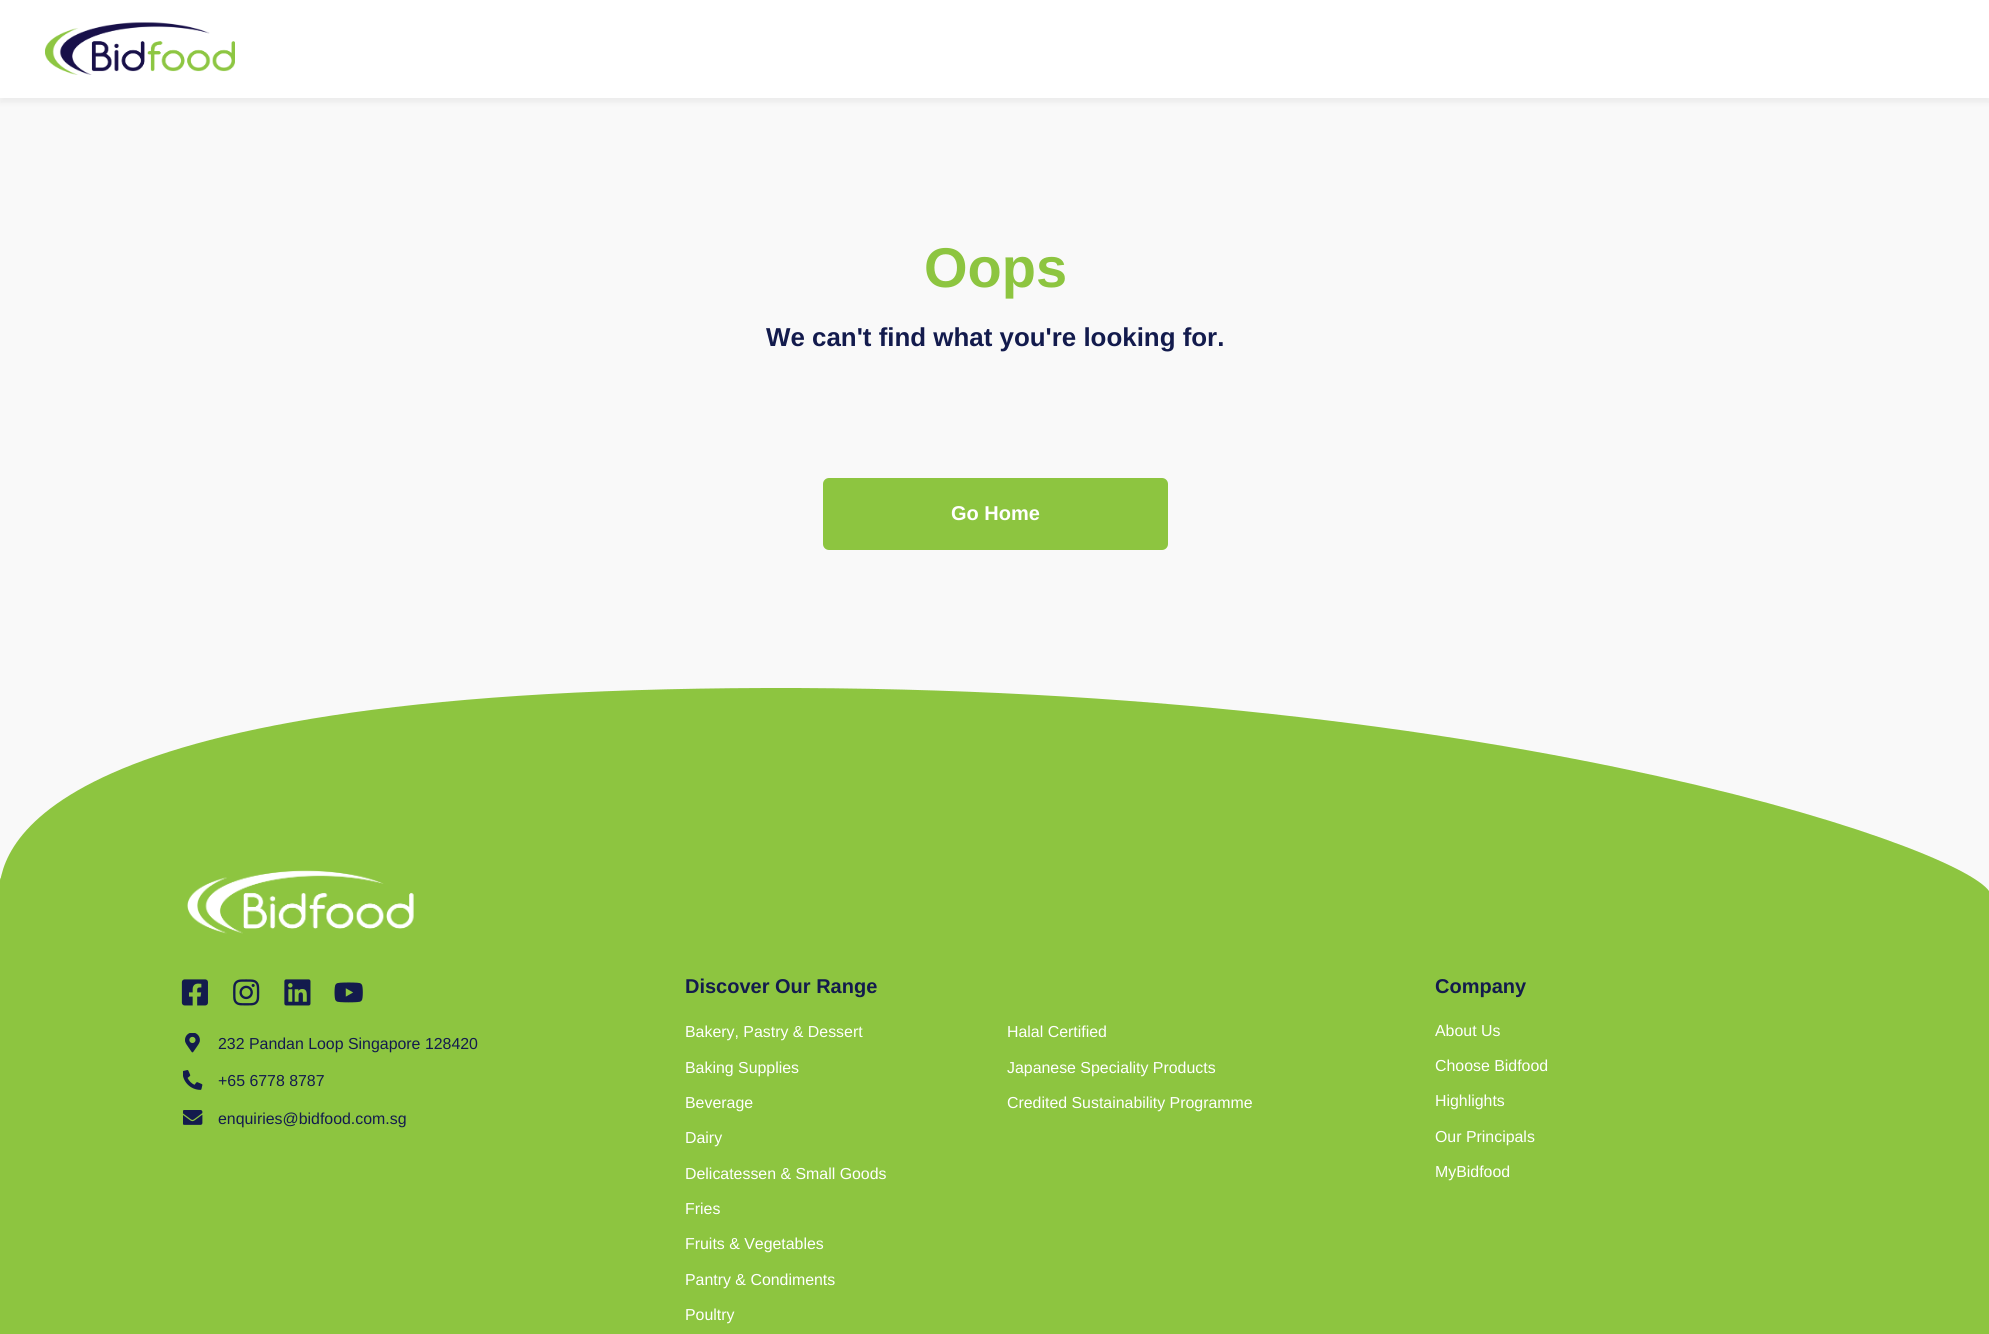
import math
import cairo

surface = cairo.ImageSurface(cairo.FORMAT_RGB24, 1989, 1334)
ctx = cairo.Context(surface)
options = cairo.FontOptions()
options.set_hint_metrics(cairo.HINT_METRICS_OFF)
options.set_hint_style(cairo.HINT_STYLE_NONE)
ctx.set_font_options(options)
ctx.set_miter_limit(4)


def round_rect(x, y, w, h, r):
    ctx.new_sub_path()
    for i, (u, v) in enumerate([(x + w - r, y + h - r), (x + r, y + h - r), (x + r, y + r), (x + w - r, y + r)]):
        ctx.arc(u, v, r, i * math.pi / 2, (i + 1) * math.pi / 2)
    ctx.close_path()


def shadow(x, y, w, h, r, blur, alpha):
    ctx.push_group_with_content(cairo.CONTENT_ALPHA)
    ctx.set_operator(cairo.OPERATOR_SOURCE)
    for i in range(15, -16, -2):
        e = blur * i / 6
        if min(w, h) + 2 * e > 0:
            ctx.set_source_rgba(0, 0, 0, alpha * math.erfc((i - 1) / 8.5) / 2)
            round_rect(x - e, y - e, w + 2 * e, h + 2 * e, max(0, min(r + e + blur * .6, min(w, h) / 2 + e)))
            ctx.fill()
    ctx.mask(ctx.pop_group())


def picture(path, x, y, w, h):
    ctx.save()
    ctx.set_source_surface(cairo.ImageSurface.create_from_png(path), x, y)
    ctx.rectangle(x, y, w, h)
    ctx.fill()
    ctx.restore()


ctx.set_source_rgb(0.973, 0.973, 0.973)
ctx.paint()
ctx.set_source_rgb(0, 0, 0)
shadow(0, 5, 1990, 98, 0, 2.5, 0.05)
ctx.set_source_rgb(1, 1, 1)
ctx.rectangle(0, 0, 1989, 98)
ctx.fill()
picture("img1.png", 45, 22, 190, 53)
ctx.select_font_face("Liberation Sans", cairo.FONT_SLANT_NORMAL, cairo.FONT_WEIGHT_BOLD)
ctx.set_font_size(56)
ctx.set_source_rgb(0.553, 0.773, 0.251)
ctx.move_to(924, 287)
ctx.show_text("Oops")
ctx.set_font_size(25.9)
ctx.set_source_rgb(0.075, 0.106, 0.302)
ctx.move_to(766, 346)
ctx.show_text("We can't find what you're looking for.")
ctx.set_source_rgb(0.553, 0.773, 0.251)
round_rect(823, 478, 345, 72, 6)
ctx.fill()
ctx.set_font_size(20)
ctx.set_source_rgb(1, 1, 1)
ctx.move_to(951, 520)
ctx.show_text("Go Home")
ctx.set_source_rgb(0.553, 0.773, 0.251)
ctx.new_path()
ctx.move_to(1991, 911)
ctx.line_to(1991, 896)
ctx.curve_to(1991, 856, 1512, 686, 766, 688)
ctx.curve_to(20, 690, -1, 855, -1, 896)
ctx.line_to(-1, 911)
ctx.close_path()
ctx.fill()
ctx.new_path()
ctx.move_to(40, 865)
ctx.curve_to(18, 865, 0, 872, 0, 881)
ctx.line_to(0, 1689)
ctx.line_to(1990, 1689)
ctx.line_to(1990, 906)
ctx.curve_to(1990, 883, 1945, 865, 1890, 865)
ctx.close_path()
ctx.fill()
picture("img2.png", 187, 870, 227, 64)
picture("img3.png", 181, 979, 27, 27)
picture("img4.png", 233, 979, 27, 27)
picture("img5.png", 284, 979, 27, 27)
picture("img6.png", 334, 982, 29, 21)
picture("img7.png", 185, 1033, 15, 20)
ctx.select_font_face("Liberation Sans")
ctx.set_font_size(15.9)
ctx.set_source_rgb(0.075, 0.106, 0.302)
ctx.move_to(218, 1049)
ctx.show_text("232 Pandan Loop Singapore 128420")
picture("img8.png", 183, 1070, 20, 20)
ctx.move_to(218, 1086)
ctx.show_text("+65 6778 8787")
picture("img9.png", 183, 1110, 20, 15)
ctx.move_to(218, 1124)
ctx.show_text("enquiries@bidfood.com.sg")
ctx.select_font_face("Liberation Sans", cairo.FONT_SLANT_NORMAL, cairo.FONT_WEIGHT_BOLD)
ctx.set_font_size(20)
ctx.move_to(685, 993)
ctx.show_text("Discover Our Range")
ctx.select_font_face("Liberation Sans")
ctx.set_font_size(15.9)
ctx.set_source_rgb(1, 1, 1)
ctx.move_to(685, 1037)
ctx.show_text("Bakery, Pastry & Dessert")
ctx.move_to(685, 1073)
ctx.show_text("Baking Supplies")
ctx.move_to(685, 1108)
ctx.show_text("Beverage")
ctx.move_to(685, 1143)
ctx.show_text("Dairy")
ctx.move_to(685, 1179)
ctx.show_text("Delicatessen & Small Goods")
ctx.move_to(685, 1214)
ctx.show_text("Fries")
ctx.move_to(685, 1249)
ctx.show_text("Fruits & Vegetables")
ctx.move_to(685, 1285)
ctx.show_text("Pantry & Condiments")
ctx.move_to(685, 1320)
ctx.show_text("Poultry")
ctx.move_to(1007, 1037)
ctx.show_text("Halal Certified")
ctx.move_to(1007, 1073)
ctx.show_text("Japanese Speciality Products")
ctx.move_to(1007, 1108)
ctx.show_text("Credited Sustainability Programme")
ctx.select_font_face("Liberation Sans", cairo.FONT_SLANT_NORMAL, cairo.FONT_WEIGHT_BOLD)
ctx.set_font_size(20)
ctx.set_source_rgb(0.075, 0.106, 0.302)
ctx.move_to(1435, 993)
ctx.show_text("Company")
ctx.select_font_face("Liberation Sans")
ctx.set_font_size(15.9)
ctx.set_source_rgb(1, 1, 1)
ctx.move_to(1435, 1036)
ctx.show_text("About Us")
ctx.move_to(1435, 1071)
ctx.show_text("Choose Bidfood")
ctx.move_to(1435, 1106)
ctx.show_text("Highlights")
ctx.move_to(1435, 1142)
ctx.show_text("Our Principals")
ctx.move_to(1435, 1177)
ctx.show_text("MyBidfood")
surface.write_to_png("page.png")
